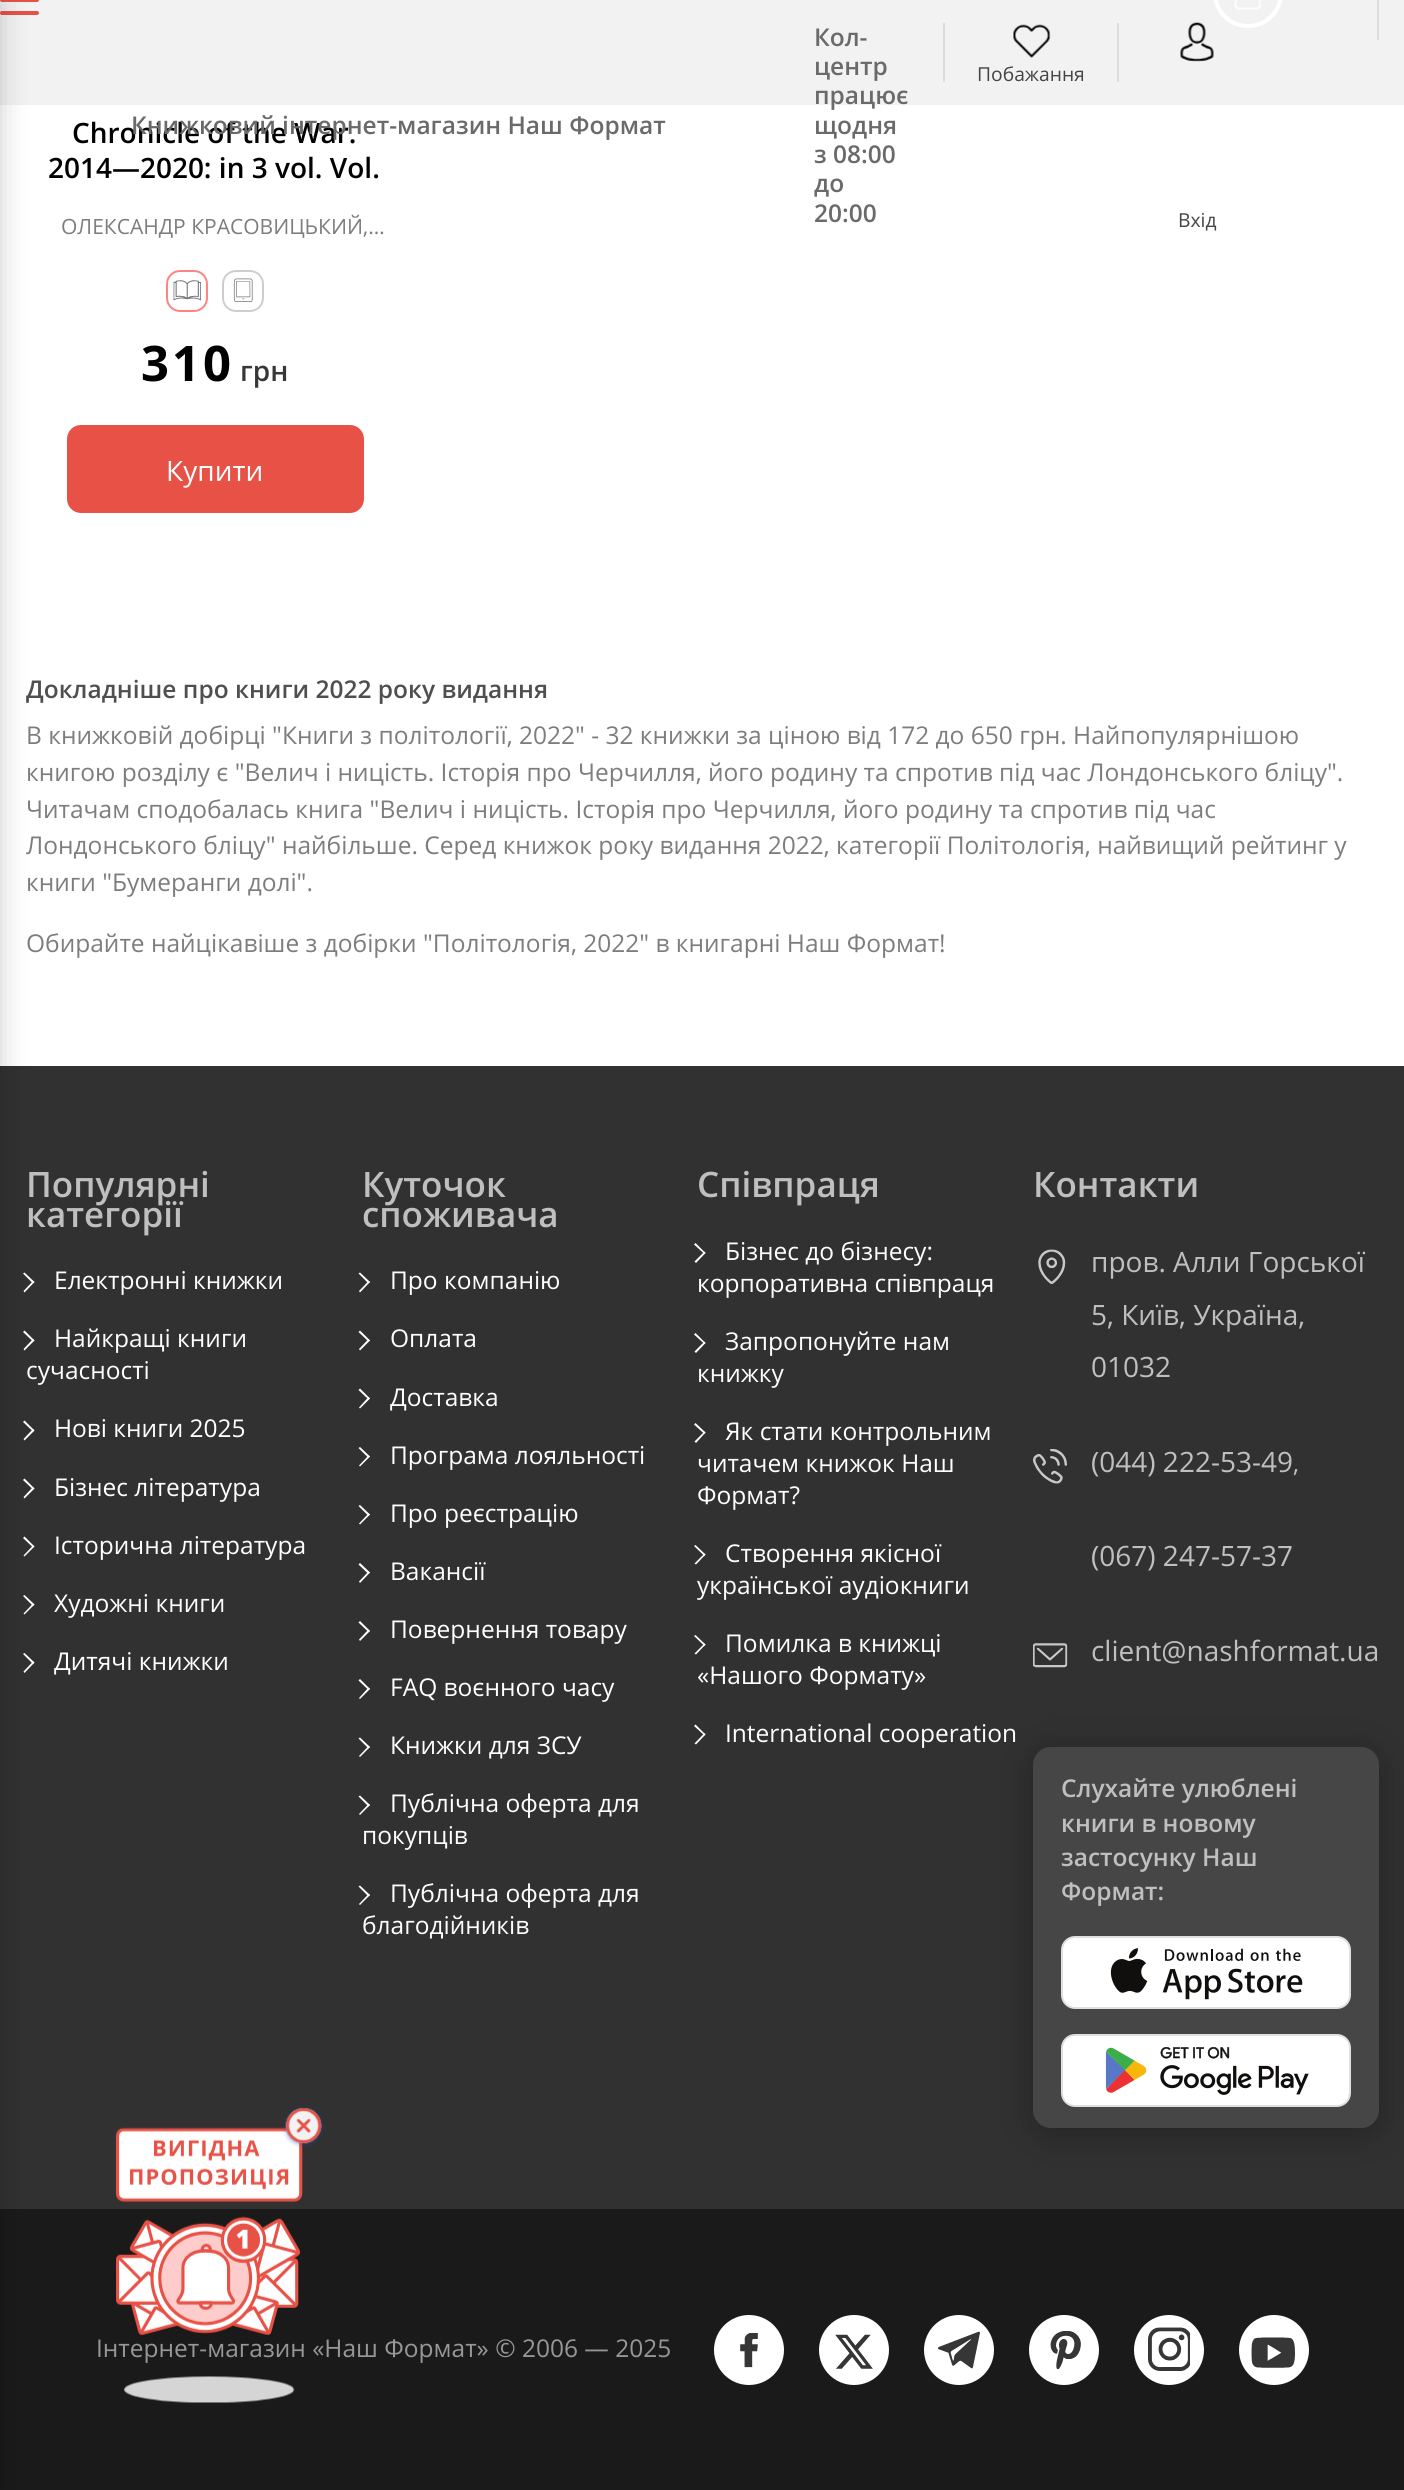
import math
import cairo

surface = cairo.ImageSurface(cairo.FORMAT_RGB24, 1404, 2490)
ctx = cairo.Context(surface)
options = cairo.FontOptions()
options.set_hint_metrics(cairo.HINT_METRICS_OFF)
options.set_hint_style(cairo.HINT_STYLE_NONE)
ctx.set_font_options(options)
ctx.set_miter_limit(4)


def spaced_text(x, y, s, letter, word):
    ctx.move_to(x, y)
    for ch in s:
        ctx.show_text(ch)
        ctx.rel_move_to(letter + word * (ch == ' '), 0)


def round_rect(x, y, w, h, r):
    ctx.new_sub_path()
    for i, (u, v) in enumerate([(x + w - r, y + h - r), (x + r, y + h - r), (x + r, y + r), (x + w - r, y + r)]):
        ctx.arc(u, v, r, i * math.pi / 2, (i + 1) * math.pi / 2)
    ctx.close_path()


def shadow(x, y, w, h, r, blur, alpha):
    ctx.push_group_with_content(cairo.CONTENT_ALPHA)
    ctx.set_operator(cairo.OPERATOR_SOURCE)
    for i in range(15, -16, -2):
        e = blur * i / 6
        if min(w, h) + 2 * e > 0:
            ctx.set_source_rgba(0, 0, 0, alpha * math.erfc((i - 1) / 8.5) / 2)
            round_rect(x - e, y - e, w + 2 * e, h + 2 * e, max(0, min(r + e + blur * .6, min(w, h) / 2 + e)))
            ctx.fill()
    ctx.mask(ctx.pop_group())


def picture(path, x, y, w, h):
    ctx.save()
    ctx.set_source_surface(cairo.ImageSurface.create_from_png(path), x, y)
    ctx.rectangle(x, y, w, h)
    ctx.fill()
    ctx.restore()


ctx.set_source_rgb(1, 1, 1)
ctx.paint()
ctx.set_source_rgb(0.949, 0.949, 0.949)
ctx.rectangle(0, 0, 1404, 105)
ctx.fill()
ctx.set_source_rgb(0.91, 0.318, 0.275)
round_rect(0, -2, 39, 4, 2)
ctx.fill()
round_rect(0, 11, 39, 4, 2)
ctx.fill()
ctx.set_source_rgb(0.867, 0.867, 0.867)
ctx.rectangle(1377, 0, 2, 40)
ctx.fill()
picture("img3.png", 1180, 22, 34, 40)
round_rect(1215, -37, 66, 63, 33)
ctx.set_source_rgb(1, 1, 1)
ctx.set_line_width(4)
ctx.stroke()
picture("img1.png", 1234, 0, 27, 10)
ctx.select_font_face("Open Sans SemiBold")
ctx.set_font_size(24.5)
ctx.set_source_rgb(0.416, 0.416, 0.416)
ctx.move_to(814, 46)
ctx.show_text("Кол-")
ctx.move_to(814, 75)
ctx.show_text("центр")
ctx.move_to(814, 104)
ctx.show_text("працює")
ctx.move_to(814, 134)
ctx.show_text("щодня")
ctx.move_to(814, 163)
ctx.show_text("з 08:00")
ctx.move_to(814, 192)
ctx.show_text("до")
ctx.move_to(814, 222)
ctx.show_text("20:00")
ctx.set_source_rgb(0.867, 0.867, 0.867)
ctx.rectangle(1117, 23, 2, 59)
ctx.fill()
ctx.rectangle(943, 23, 2, 59)
ctx.fill()
picture("img2.png", 1013, 24, 38, 34)
ctx.select_font_face("Open Sans")
ctx.set_font_size(19.25)
ctx.set_source_rgb(0.267, 0.267, 0.267)
ctx.move_to(977, 81)
ctx.show_text("Побажання")
ctx.select_font_face("Open Sans SemiBold")
ctx.set_font_size(28)
ctx.set_source_rgb(0, 0, 0)
ctx.move_to(72, 143)
ctx.show_text("Chronicle of the War.")
ctx.set_font_size(24.5)
ctx.set_source_rgb(0.416, 0.416, 0.416)
ctx.move_to(131, 134)
ctx.show_text("Книжковий інтернет-магазин Наш Формат")
ctx.select_font_face("Open Sans")
ctx.set_font_size(19.25)
ctx.set_source_rgb(0.267, 0.267, 0.267)
ctx.move_to(1178, 227)
ctx.show_text("Вхід")
ctx.set_source_rgb(0.192, 0.192, 0.192)
ctx.rectangle(0, 1066, 1404, 1143)
ctx.fill()
ctx.set_source_rgb(1, 1, 1)
ctx.new_path()
ctx.move_to(23, 1273.5)
ctx.line_to(24.5, 1272.5)
ctx.line_to(34.5, 1282)
ctx.line_to(33, 1283.5)
ctx.close_path()
ctx.fill()
ctx.new_path()
ctx.move_to(23.5, 1291)
ctx.line_to(33, 1281)
ctx.line_to(34.5, 1282)
ctx.line_to(24.5, 1292.5)
ctx.close_path()
ctx.fill()
ctx.new_path()
ctx.move_to(23, 1332)
ctx.line_to(24.5, 1330.5)
ctx.line_to(34.5, 1340.5)
ctx.line_to(33, 1341.5)
ctx.close_path()
ctx.fill()
ctx.new_path()
ctx.move_to(23.5, 1349)
ctx.line_to(33, 1339)
ctx.line_to(34.5, 1340.5)
ctx.line_to(24.5, 1350.5)
ctx.close_path()
ctx.fill()
ctx.new_path()
ctx.move_to(23, 1422)
ctx.line_to(24.5, 1420.5)
ctx.line_to(34.5, 1430.5)
ctx.line_to(33, 1431.5)
ctx.close_path()
ctx.fill()
ctx.new_path()
ctx.move_to(23.5, 1439)
ctx.line_to(33, 1429)
ctx.line_to(34.5, 1430.5)
ctx.line_to(24.5, 1440.5)
ctx.close_path()
ctx.fill()
ctx.new_path()
ctx.move_to(23, 1480)
ctx.line_to(24.5, 1478.5)
ctx.line_to(34.5, 1488.5)
ctx.line_to(33, 1489.5)
ctx.close_path()
ctx.fill()
ctx.new_path()
ctx.move_to(23.5, 1497)
ctx.line_to(33, 1487)
ctx.line_to(34.5, 1488.5)
ctx.line_to(24.5, 1498.5)
ctx.close_path()
ctx.fill()
ctx.new_path()
ctx.move_to(23, 1538)
ctx.line_to(24.5, 1536.5)
ctx.line_to(34.5, 1546.5)
ctx.line_to(33, 1547.5)
ctx.close_path()
ctx.fill()
ctx.new_path()
ctx.move_to(23.5, 1555.5)
ctx.line_to(33, 1545.5)
ctx.line_to(34.5, 1546.5)
ctx.line_to(24.5, 1556.5)
ctx.close_path()
ctx.fill()
ctx.new_path()
ctx.move_to(23, 1596)
ctx.line_to(24.5, 1595)
ctx.line_to(34.5, 1604.5)
ctx.line_to(33, 1606)
ctx.close_path()
ctx.fill()
ctx.new_path()
ctx.move_to(23.5, 1613.5)
ctx.line_to(33, 1603.5)
ctx.line_to(34.5, 1604.5)
ctx.line_to(24.5, 1614.5)
ctx.close_path()
ctx.fill()
ctx.new_path()
ctx.move_to(23, 1654)
ctx.line_to(24.5, 1653)
ctx.line_to(34.5, 1662.5)
ctx.line_to(33, 1664)
ctx.close_path()
ctx.fill()
ctx.new_path()
ctx.move_to(23.5, 1671.5)
ctx.line_to(33, 1661.5)
ctx.line_to(34.5, 1662.5)
ctx.line_to(24.5, 1673)
ctx.close_path()
ctx.fill()
ctx.set_source_rgb(0.102, 0.102, 0.102)
ctx.rectangle(0, 2209, 1404, 281)
ctx.fill()
ctx.set_source_rgb(0, 0, 0)
shadow(-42, 0, 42, 2490, 0, 14, 0.2)
ctx.select_font_face("Open Sans SemiBold")
ctx.set_font_size(28)
ctx.set_source_rgb(0, 0, 0)
ctx.move_to(48, 178)
ctx.show_text("2014—2020: in 3 vol. Vol.")
ctx.select_font_face("Open Sans")
ctx.set_font_size(21)
ctx.set_source_rgb(0.49, 0.49, 0.49)
ctx.move_to(61, 234)
ctx.show_text("ОЛЕКСАНДР КРАСОВИЦЬКИЙ,…")
picture("img4.png", 173, 280, 28, 21)
round_rect(167, 271, 40, 40, 13)
ctx.set_source_rgb(1, 0.514, 0.514)
ctx.set_line_width(2)
ctx.stroke()
picture("img5.png", 233, 278, 20, 24)
round_rect(223, 271, 40, 40, 13)
ctx.set_source_rgb(0.808, 0.808, 0.808)
ctx.stroke()
ctx.select_font_face("Open Sans", cairo.FONT_SLANT_NORMAL, cairo.FONT_WEIGHT_BOLD)
ctx.set_font_size(49)
ctx.set_source_rgb(0, 0, 0)
spaced_text(141, 381, "310", 3, 0)
ctx.select_font_face("Open Sans SemiBold")
ctx.set_font_size(28)
ctx.set_source_rgb(0.216, 0.216, 0.216)
ctx.move_to(240, 381)
ctx.show_text("грн")
ctx.set_source_rgb(0.91, 0.318, 0.275)
round_rect(67, 425, 297, 88, 14)
ctx.fill()
ctx.select_font_face("Open Sans")
ctx.set_source_rgb(1, 1, 1)
ctx.move_to(166, 481)
ctx.show_text("Купити")
ctx.select_font_face("Open Sans SemiBold")
ctx.set_font_size(24.5)
ctx.set_source_rgb(0.31, 0.31, 0.31)
ctx.move_to(26, 698)
ctx.show_text("Докладніше про книги 2022 року видання")
ctx.select_font_face("Open Sans")
ctx.set_source_rgb(0.49, 0.49, 0.49)
ctx.move_to(26, 744)
ctx.show_text("В книжковій добірці \"Книги з політології, 2022\" - 32 книжки за ціною від 172 до 650 грн. Найпопулярнішою")
ctx.move_to(26, 781)
ctx.show_text("книгою розділу є \"Велич і ницість. Історія про Черчилля, його родину та спротив під час Лондонського бліцу\".")
ctx.move_to(26, 818)
ctx.show_text("Читачам сподобалась книга \"Велич і ницість. Історія про Черчилля, його родину та спротив під час")
ctx.move_to(26, 854)
ctx.show_text("Лондонського бліцу\" найбільше. Серед книжок року видання 2022, категорії Політологія, найвищий рейтинг у")
ctx.move_to(26, 891)
ctx.show_text("книги \"Бумеранги долі\".")
ctx.move_to(26, 952)
ctx.show_text("Обирайте найцікавіше з добірки \"Політологія, 2022\" в книгарні Наш Формат!")
ctx.select_font_face("Open Sans SemiBold")
ctx.set_font_size(35)
ctx.set_source_rgb(0.749, 0.749, 0.749)
ctx.move_to(26, 1197)
ctx.show_text("Популярні")
ctx.move_to(26, 1227)
ctx.show_text("категорії")
ctx.select_font_face("Open Sans")
ctx.set_font_size(24.5)
ctx.set_source_rgb(1, 1, 1)
ctx.move_to(54, 1289)
ctx.show_text("Електронні книжки")
ctx.move_to(54, 1347)
ctx.show_text("Найкращі книги")
ctx.move_to(26, 1379)
ctx.show_text("сучасності")
ctx.move_to(54, 1437)
ctx.show_text("Нові книги 2025")
ctx.move_to(54, 1496)
ctx.show_text("Бізнес література")
ctx.move_to(54, 1554)
ctx.show_text("Історична література")
ctx.move_to(54, 1612)
ctx.show_text("Художні книги")
ctx.move_to(54, 1670)
ctx.show_text("Дитячі книжки")
ctx.select_font_face("Open Sans SemiBold")
ctx.set_font_size(35)
ctx.set_source_rgb(0.749, 0.749, 0.749)
ctx.move_to(362, 1197)
ctx.show_text("Куточок")
ctx.move_to(362, 1227)
ctx.show_text("споживача")
ctx.set_source_rgb(1, 1, 1)
ctx.new_path()
ctx.move_to(358.5, 1273.5)
ctx.line_to(360, 1272.5)
ctx.line_to(370, 1282)
ctx.line_to(368.5, 1283.5)
ctx.close_path()
ctx.fill()
ctx.new_path()
ctx.move_to(359, 1291)
ctx.line_to(368.5, 1281)
ctx.line_to(370, 1282)
ctx.line_to(360, 1292.5)
ctx.close_path()
ctx.fill()
ctx.select_font_face("Open Sans")
ctx.set_font_size(24.5)
ctx.move_to(390, 1289)
ctx.show_text("Про компанію")
ctx.new_path()
ctx.move_to(358.5, 1332)
ctx.line_to(360, 1330.5)
ctx.line_to(370, 1340.5)
ctx.line_to(368.5, 1341.5)
ctx.close_path()
ctx.fill()
ctx.new_path()
ctx.move_to(359, 1349)
ctx.line_to(368.5, 1339)
ctx.line_to(370, 1340.5)
ctx.line_to(360, 1350.5)
ctx.close_path()
ctx.fill()
ctx.move_to(390, 1347)
ctx.show_text("Оплата")
ctx.new_path()
ctx.move_to(358.5, 1390)
ctx.line_to(360, 1388.5)
ctx.line_to(370, 1398.5)
ctx.line_to(368.5, 1399.5)
ctx.close_path()
ctx.fill()
ctx.new_path()
ctx.move_to(359, 1407.5)
ctx.line_to(368.5, 1397)
ctx.line_to(370, 1398.5)
ctx.line_to(360, 1408.5)
ctx.close_path()
ctx.fill()
ctx.move_to(390, 1406)
ctx.show_text("Доставка")
ctx.new_path()
ctx.move_to(358.5, 1448)
ctx.line_to(360, 1447)
ctx.line_to(370, 1456.5)
ctx.line_to(368.5, 1458)
ctx.close_path()
ctx.fill()
ctx.new_path()
ctx.move_to(359, 1465.5)
ctx.line_to(368.5, 1455.5)
ctx.line_to(370, 1456.5)
ctx.line_to(360, 1466.5)
ctx.close_path()
ctx.fill()
ctx.move_to(390, 1464)
ctx.show_text("Програма лояльності")
ctx.new_path()
ctx.move_to(358.5, 1506)
ctx.line_to(360, 1505)
ctx.line_to(370, 1514.5)
ctx.line_to(368.5, 1516)
ctx.close_path()
ctx.fill()
ctx.new_path()
ctx.move_to(359, 1523.5)
ctx.line_to(368.5, 1513.5)
ctx.line_to(370, 1514.5)
ctx.line_to(360, 1524.5)
ctx.close_path()
ctx.fill()
ctx.move_to(390, 1522)
ctx.show_text("Про реєстрацію")
ctx.new_path()
ctx.move_to(358.5, 1564.5)
ctx.line_to(360, 1563)
ctx.line_to(370, 1572.5)
ctx.line_to(368.5, 1574)
ctx.close_path()
ctx.fill()
ctx.new_path()
ctx.move_to(359, 1581.5)
ctx.line_to(368.5, 1571.5)
ctx.line_to(370, 1572.5)
ctx.line_to(360, 1583)
ctx.close_path()
ctx.fill()
ctx.move_to(390, 1580)
ctx.show_text("Вакансії")
ctx.new_path()
ctx.move_to(358.5, 1622.5)
ctx.line_to(360, 1621)
ctx.line_to(370, 1631)
ctx.line_to(368.5, 1632)
ctx.close_path()
ctx.fill()
ctx.new_path()
ctx.move_to(359, 1639.5)
ctx.line_to(368.5, 1629.5)
ctx.line_to(370, 1631)
ctx.line_to(360, 1641)
ctx.close_path()
ctx.fill()
ctx.move_to(390, 1638)
ctx.show_text("Повернення товару")
ctx.new_path()
ctx.move_to(358.5, 1680.5)
ctx.line_to(360, 1679)
ctx.line_to(370, 1689)
ctx.line_to(368.5, 1690)
ctx.close_path()
ctx.fill()
ctx.new_path()
ctx.move_to(359, 1698)
ctx.line_to(368.5, 1687.5)
ctx.line_to(370, 1689)
ctx.line_to(360, 1699)
ctx.close_path()
ctx.fill()
ctx.move_to(390, 1696)
ctx.show_text("FAQ воєнного часу")
ctx.new_path()
ctx.move_to(358.5, 1738.5)
ctx.line_to(360, 1737.5)
ctx.line_to(370, 1747)
ctx.line_to(368.5, 1748.5)
ctx.close_path()
ctx.fill()
ctx.new_path()
ctx.move_to(359, 1756)
ctx.line_to(368.5, 1746)
ctx.line_to(370, 1747)
ctx.line_to(360, 1757)
ctx.close_path()
ctx.fill()
ctx.move_to(390, 1754)
ctx.show_text("Книжки для ЗСУ")
ctx.new_path()
ctx.move_to(358.5, 1796.5)
ctx.line_to(360, 1795.5)
ctx.line_to(370, 1805)
ctx.line_to(368.5, 1806.5)
ctx.close_path()
ctx.fill()
ctx.new_path()
ctx.move_to(359, 1814)
ctx.line_to(368.5, 1804)
ctx.line_to(370, 1805)
ctx.line_to(360, 1815)
ctx.close_path()
ctx.fill()
ctx.move_to(390, 1812)
ctx.show_text("Публічна оферта для")
ctx.move_to(362, 1844)
ctx.show_text("покупців")
ctx.new_path()
ctx.move_to(358.5, 1886.5)
ctx.line_to(360, 1885.5)
ctx.line_to(370, 1895)
ctx.line_to(368.5, 1896.5)
ctx.close_path()
ctx.fill()
ctx.new_path()
ctx.move_to(359, 1904)
ctx.line_to(368.5, 1894)
ctx.line_to(370, 1895)
ctx.line_to(360, 1905)
ctx.close_path()
ctx.fill()
ctx.move_to(390, 1902)
ctx.show_text("Публічна оферта для")
ctx.move_to(362, 1934)
ctx.show_text("благодійників")
ctx.select_font_face("Open Sans SemiBold")
ctx.set_font_size(35)
ctx.set_source_rgb(0.749, 0.749, 0.749)
ctx.move_to(697, 1197)
ctx.show_text("Співпраця")
ctx.set_source_rgb(1, 1, 1)
ctx.new_path()
ctx.move_to(694, 1244.5)
ctx.line_to(695.5, 1243)
ctx.line_to(705.5, 1253)
ctx.line_to(704.5, 1254)
ctx.close_path()
ctx.fill()
ctx.new_path()
ctx.move_to(694.5, 1261.5)
ctx.line_to(704.5, 1251.5)
ctx.line_to(705.5, 1253)
ctx.line_to(696, 1263)
ctx.close_path()
ctx.fill()
ctx.select_font_face("Open Sans")
ctx.set_font_size(24.5)
ctx.move_to(725, 1260)
ctx.show_text("Бізнес до бізнесу:")
ctx.move_to(697, 1292)
ctx.show_text("корпоративна співпраця")
ctx.new_path()
ctx.move_to(694, 1334.5)
ctx.line_to(695.5, 1333)
ctx.line_to(705.5, 1343)
ctx.line_to(704.5, 1344)
ctx.close_path()
ctx.fill()
ctx.new_path()
ctx.move_to(694.5, 1351.5)
ctx.line_to(704.5, 1341.5)
ctx.line_to(705.5, 1343)
ctx.line_to(696, 1353)
ctx.close_path()
ctx.fill()
ctx.move_to(725, 1350)
ctx.show_text("Запропонуйте нам")
ctx.move_to(697, 1382)
ctx.show_text("книжку")
ctx.new_path()
ctx.move_to(694, 1424.5)
ctx.line_to(695.5, 1423)
ctx.line_to(705.5, 1432.5)
ctx.line_to(704.5, 1434)
ctx.close_path()
ctx.fill()
ctx.new_path()
ctx.move_to(694.5, 1441.5)
ctx.line_to(704.5, 1431.5)
ctx.line_to(705.5, 1432.5)
ctx.line_to(696, 1443)
ctx.close_path()
ctx.fill()
ctx.move_to(725, 1440)
ctx.show_text("Як стати контрольним")
ctx.move_to(697, 1472)
ctx.show_text("читачем книжок Наш")
ctx.move_to(697, 1504)
ctx.show_text("Формат?")
ctx.new_path()
ctx.move_to(694, 1546)
ctx.line_to(695.5, 1545)
ctx.line_to(705.5, 1554.5)
ctx.line_to(704.5, 1556)
ctx.close_path()
ctx.fill()
ctx.new_path()
ctx.move_to(694.5, 1563.5)
ctx.line_to(704.5, 1553.5)
ctx.line_to(705.5, 1554.5)
ctx.line_to(696, 1564.5)
ctx.close_path()
ctx.fill()
ctx.move_to(725, 1562)
ctx.show_text("Створення якісної")
ctx.move_to(697, 1594)
ctx.show_text("української аудіокниги")
ctx.new_path()
ctx.move_to(694, 1636)
ctx.line_to(695.5, 1635)
ctx.line_to(705.5, 1644.5)
ctx.line_to(704.5, 1646)
ctx.close_path()
ctx.fill()
ctx.new_path()
ctx.move_to(694.5, 1653.5)
ctx.line_to(704.5, 1643.5)
ctx.line_to(705.5, 1644.5)
ctx.line_to(696, 1654.5)
ctx.close_path()
ctx.fill()
ctx.move_to(725, 1652)
ctx.show_text("Помилка в книжці")
ctx.move_to(697, 1684)
ctx.show_text("«Нашого Формату»")
ctx.new_path()
ctx.move_to(694, 1726)
ctx.line_to(695.5, 1724.5)
ctx.line_to(705.5, 1734.5)
ctx.line_to(704.5, 1735.5)
ctx.close_path()
ctx.fill()
ctx.new_path()
ctx.move_to(694.5, 1743.5)
ctx.line_to(704.5, 1733)
ctx.line_to(705.5, 1734.5)
ctx.line_to(696, 1744.5)
ctx.close_path()
ctx.fill()
ctx.set_source_rgb(0, 0, 0)
shadow(1033, 1752, 346, 381, 18, 19, 0.3)
ctx.set_source_rgb(1, 1, 1)
ctx.move_to(725, 1742)
ctx.show_text("International cooperation")
ctx.select_font_face("Open Sans SemiBold")
ctx.set_font_size(35)
ctx.set_source_rgb(0.749, 0.749, 0.749)
ctx.move_to(1033, 1197)
ctx.show_text("Контакти")
picture("img6.png", 1038, 1249, 28, 35)
ctx.select_font_face("Open Sans")
ctx.set_font_size(28)
ctx.move_to(1091, 1272)
ctx.show_text("пров. Алли Горської")
ctx.move_to(1091, 1325)
ctx.show_text("5, Київ, Україна,")
ctx.move_to(1091, 1377)
ctx.show_text("01032")
picture("img7.png", 1033, 1449, 34, 35)
ctx.move_to(1091, 1472)
ctx.show_text("(044) 222-53-49")
ctx.set_font_size(24.5)
ctx.move_to(1293, 1472)
ctx.show_text(",")
ctx.set_font_size(28)
ctx.move_to(1091, 1566)
ctx.show_text("(067) 247-57-37")
picture("img8.png", 1033, 1643, 35, 25)
ctx.move_to(1091, 1661)
ctx.show_text("client@nashformat.ua")
ctx.set_source_rgb(0.275, 0.275, 0.275)
round_rect(1033, 1747, 346, 381, 18)
ctx.fill()
ctx.select_font_face("Open Sans SemiBold")
ctx.set_font_size(24.5)
ctx.set_source_rgb(0.749, 0.749, 0.749)
ctx.move_to(1061, 1797)
ctx.show_text("Слухайте улюблені")
ctx.move_to(1061, 1832)
ctx.show_text("книги в новому")
ctx.move_to(1061, 1866)
ctx.show_text("застосунку Наш")
ctx.move_to(1061, 1900)
ctx.show_text("Формат:")
ctx.set_source_rgb(1, 1, 1)
round_rect(1062, 1937, 288, 71, 13)
ctx.fill_preserve()
ctx.set_source_rgb(0.878, 0.878, 0.878)
ctx.stroke()
picture("img9.png", 1110, 1948, 193, 52)
ctx.set_source_rgb(1, 1, 1)
round_rect(1062, 2035, 288, 71, 13)
ctx.fill_preserve()
ctx.set_source_rgb(0.878, 0.878, 0.878)
ctx.stroke()
picture("img10.png", 1105, 2047, 204, 48)
ctx.select_font_face("Open Sans")
ctx.set_source_rgb(0.592, 0.592, 0.592)
ctx.move_to(96, 2357)
ctx.show_text("Інтернет-магазин «Наш Формат» © 2006 — 2025")
ctx.set_source_rgb(1, 1, 1)
ctx.new_path()
ctx.arc(749, 2350, 35, 0, 2 * math.pi)
ctx.fill()
picture("img11.png", 740, 2333, 18, 35)
ctx.arc(854, 2350, 35, 0, 2 * math.pi)
ctx.fill()
picture("img12.png", 835, 2334, 38, 35)
ctx.arc(959, 2350, 35, 0, 2 * math.pi)
ctx.fill()
picture("img13.png", 938, 2331, 42, 38)
ctx.arc(1064, 2350, 35, 0, 2 * math.pi)
ctx.fill()
picture("img14.png", 1050, 2331, 31, 38)
ctx.arc(1169, 2350, 35, 0, 2 * math.pi)
ctx.fill()
picture("img15.png", 1148, 2327, 42, 44)
ctx.arc(1274, 2350, 35, 0, 2 * math.pi)
ctx.fill()
picture("img16.png", 1251, 2337, 44, 31)
picture("img17.png", 115, 2127, 188, 209)
picture("img18.png", 282, 2106, 43, 42)
picture("img19.png", 124, 2376, 171, 27)
surface.write_to_png("page.png")
